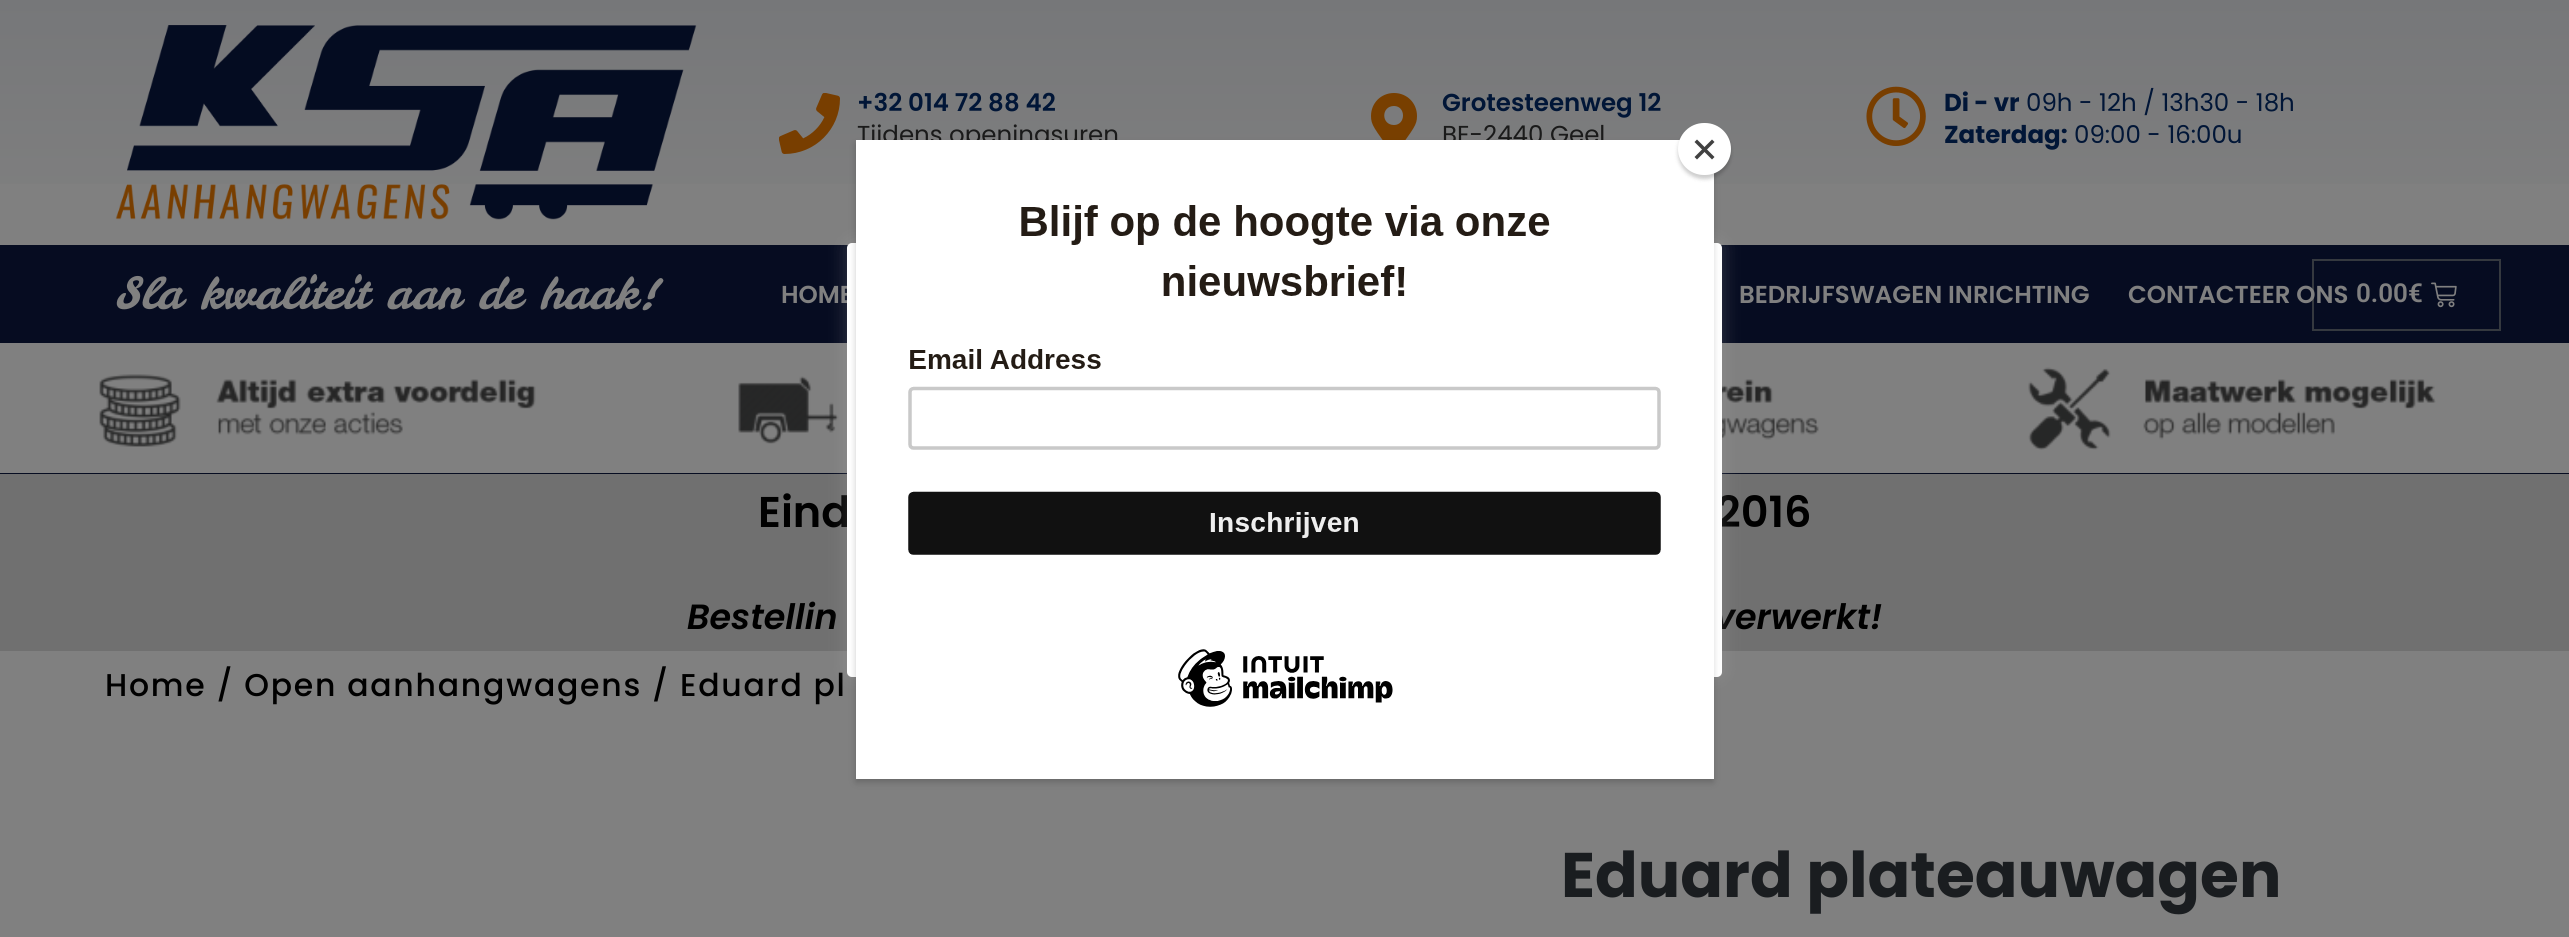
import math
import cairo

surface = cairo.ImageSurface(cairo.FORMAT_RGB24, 2569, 937)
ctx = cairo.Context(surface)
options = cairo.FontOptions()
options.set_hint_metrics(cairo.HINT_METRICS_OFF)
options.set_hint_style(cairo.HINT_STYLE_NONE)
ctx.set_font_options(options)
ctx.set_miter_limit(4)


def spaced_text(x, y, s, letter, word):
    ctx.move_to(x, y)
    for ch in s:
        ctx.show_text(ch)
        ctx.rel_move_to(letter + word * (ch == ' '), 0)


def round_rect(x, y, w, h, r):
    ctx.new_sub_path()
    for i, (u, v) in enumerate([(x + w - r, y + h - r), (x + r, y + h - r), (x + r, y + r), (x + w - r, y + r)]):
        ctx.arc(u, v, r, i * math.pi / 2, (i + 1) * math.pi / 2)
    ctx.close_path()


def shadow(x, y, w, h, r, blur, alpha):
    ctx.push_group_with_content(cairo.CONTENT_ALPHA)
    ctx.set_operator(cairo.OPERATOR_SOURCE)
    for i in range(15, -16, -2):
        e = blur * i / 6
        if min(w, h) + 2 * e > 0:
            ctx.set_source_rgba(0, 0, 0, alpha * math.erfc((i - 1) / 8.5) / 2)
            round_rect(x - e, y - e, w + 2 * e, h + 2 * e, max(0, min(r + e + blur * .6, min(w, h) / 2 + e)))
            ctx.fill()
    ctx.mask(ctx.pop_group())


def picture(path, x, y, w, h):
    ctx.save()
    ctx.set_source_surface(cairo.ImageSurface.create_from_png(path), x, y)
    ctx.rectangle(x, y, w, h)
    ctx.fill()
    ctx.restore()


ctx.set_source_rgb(0.502, 0.502, 0.502)
ctx.paint()
gradient = cairo.LinearGradient(1285, 0, 1285, 245)
gradient.add_color_stop_rgba(0, 0.463, 0.467, 0.475, 1)
gradient.add_color_stop_rgba(1, 0.502, 0.502, 0.502, 1)
ctx.set_source(gradient)
ctx.rectangle(0, 0, 2569, 184)
ctx.fill()
picture("img1.png", 115, 25, 582, 195)
picture("img2.png", 779, 93, 61, 61)
ctx.select_font_face("Poppins SemiBold")
ctx.set_font_size(24.5)
ctx.set_source_rgb(0.004, 0.086, 0.216)
ctx.move_to(857, 111)
ctx.show_text("+32 014 72 88 42")
ctx.select_font_face("Poppins")
ctx.set_source_rgb(0.102, 0.102, 0.102)
ctx.move_to(857, 143)
ctx.show_text("Tijdens openingsuren")
ctx.set_source_rgb(0.471, 0.247, 0)
ctx.new_path()
ctx.move_to(1392, 153)
ctx.curve_to(1374, 128, 1371, 125, 1371, 116)
ctx.curve_to(1371, 103, 1381, 93, 1394, 93)
ctx.curve_to(1407, 93, 1417, 103, 1417, 116)
ctx.curve_to(1417, 125, 1414, 128, 1396, 153)
ctx.curve_to(1395, 154, 1393, 154, 1392, 153)
ctx.close_path()
ctx.move_to(1394, 125)
ctx.curve_to(1406, 125, 1406, 106, 1394, 106)
ctx.curve_to(1381, 106, 1381, 125, 1394, 125)
ctx.close_path()
ctx.fill()
ctx.select_font_face("Poppins SemiBold")
ctx.set_source_rgb(0.004, 0.086, 0.216)
ctx.move_to(1442, 111)
ctx.show_text("Grotesteenweg 12")
ctx.select_font_face("Poppins")
ctx.set_source_rgb(0.102, 0.102, 0.102)
ctx.move_to(1442, 143)
ctx.show_text("BE-2440 Geel")
picture("img3.png", 1866, 86, 60, 60)
ctx.select_font_face("Poppins", cairo.FONT_SLANT_NORMAL, cairo.FONT_WEIGHT_BOLD)
ctx.set_source_rgb(0.004, 0.086, 0.216)
ctx.move_to(1944, 111)
ctx.show_text("Di - vr")
ctx.select_font_face("Poppins")
ctx.move_to(2026, 111)
ctx.show_text("09h - 12h / 13h30 - 18h")
ctx.select_font_face("Poppins", cairo.FONT_SLANT_NORMAL, cairo.FONT_WEIGHT_BOLD)
ctx.move_to(1944, 143)
ctx.show_text("Zaterdag:")
ctx.select_font_face("Poppins")
ctx.move_to(2074, 143)
ctx.show_text("09:00 - 16:00u")
ctx.set_source_rgb(0.024, 0.047, 0.129)
ctx.rectangle(0, 245, 2569, 98)
ctx.fill()
ctx.select_font_face("Leckerli One", cairo.FONT_SLANT_ITALIC)
ctx.set_font_size(43.75)
ctx.set_source_rgb(0.502, 0.502, 0.502)
ctx.move_to(114, 309)
ctx.show_text("Sla kwaliteit aan de haak!")
ctx.select_font_face("Poppins SemiBold")
ctx.set_font_size(24.5)
ctx.move_to(781, 303)
ctx.show_text("HOME")
ctx.move_to(1739, 303)
ctx.show_text("BEDRIJFSWAGEN INRICHTING")
ctx.rectangle(2313, 260, 187, 70)
ctx.set_source_rgb(0.208, 0.224, 0.247)
ctx.stroke()
ctx.set_source_rgb(0.502, 0.502, 0.502)
ctx.move_to(2128, 303)
ctx.show_text("CONTACTEER ONS")
ctx.select_font_face("Roboto SemiBold")
ctx.set_font_size(26)
ctx.move_to(2356, 302)
ctx.show_text("0.00€")
picture("img4.png", 2431, 282, 26, 26)
ctx.set_source_rgb(0.024, 0.047, 0.129)
ctx.rectangle(0, 473, 2569, 1)
ctx.fill()
picture("img5.png", 99, 374, 437, 73)
picture("img6.png", 738, 376, 101, 68)
picture("img7.png", 1722, 379, 97, 61)
picture("img8.png", 2028, 367, 408, 83)
ctx.set_source_rgb(0.439, 0.439, 0.439)
ctx.rectangle(0, 474, 2569, 177)
ctx.fill()
ctx.select_font_face("Poppins SemiBold")
ctx.set_font_size(43)
ctx.set_source_rgb(0, 0, 0)
ctx.move_to(758, 527)
ctx.show_text("Eind")
ctx.move_to(1716, 527)
ctx.show_text("2016")
ctx.select_font_face("Poppins SemiBold", cairo.FONT_SLANT_ITALIC)
ctx.set_font_size(35)
ctx.move_to(687, 629)
ctx.show_text("Bestellin")
ctx.move_to(1714, 629)
ctx.show_text("verwerkt!")
ctx.select_font_face("Poppins Medium")
ctx.set_font_size(31.5)
spaced_text(105, 696, "Home / Open aanhangwagens / Eduard pl", 1.75, 0)
ctx.select_font_face("Poppins", cairo.FONT_SLANT_NORMAL, cairo.FONT_WEIGHT_BOLD)
ctx.set_font_size(63)
ctx.set_source_rgb(0.102, 0.114, 0.125)
ctx.move_to(1561, 897)
ctx.show_text("Eduard plateauwagen")
ctx.set_source_rgb(0.675, 0.671, 0.671)
shadow(847, 242, 875, 434, 5, 9, 0.3)
ctx.set_source_rgb(1, 1, 1)
round_rect(847, 243, 875, 434, 5)
ctx.fill()
ctx.set_source_rgb(0, 0, 0)
shadow(856, 144, 857, 638, 0, 3.5, 0.2)
picture("img9.png", 856, 140, 858, 639)
shadow(1678, 126, 53, 53, 26.5, 2, 0.2)
ctx.set_source_rgb(1, 1, 1)
round_rect(1678, 123, 53, 52, 26)
ctx.fill()
ctx.set_source_rgb(0.255, 0.255, 0.255)
ctx.new_path()
ctx.move_to(1712, 139.5)
ctx.line_to(1714.5, 142)
ctx.line_to(1697, 159.5)
ctx.line_to(1694.5, 157)
ctx.close_path()
ctx.fill()
ctx.new_path()
ctx.move_to(1694.5, 142)
ctx.line_to(1697, 139.5)
ctx.line_to(1714.5, 157)
ctx.line_to(1712, 159.5)
ctx.close_path()
ctx.fill()
surface.write_to_png("page.png")
